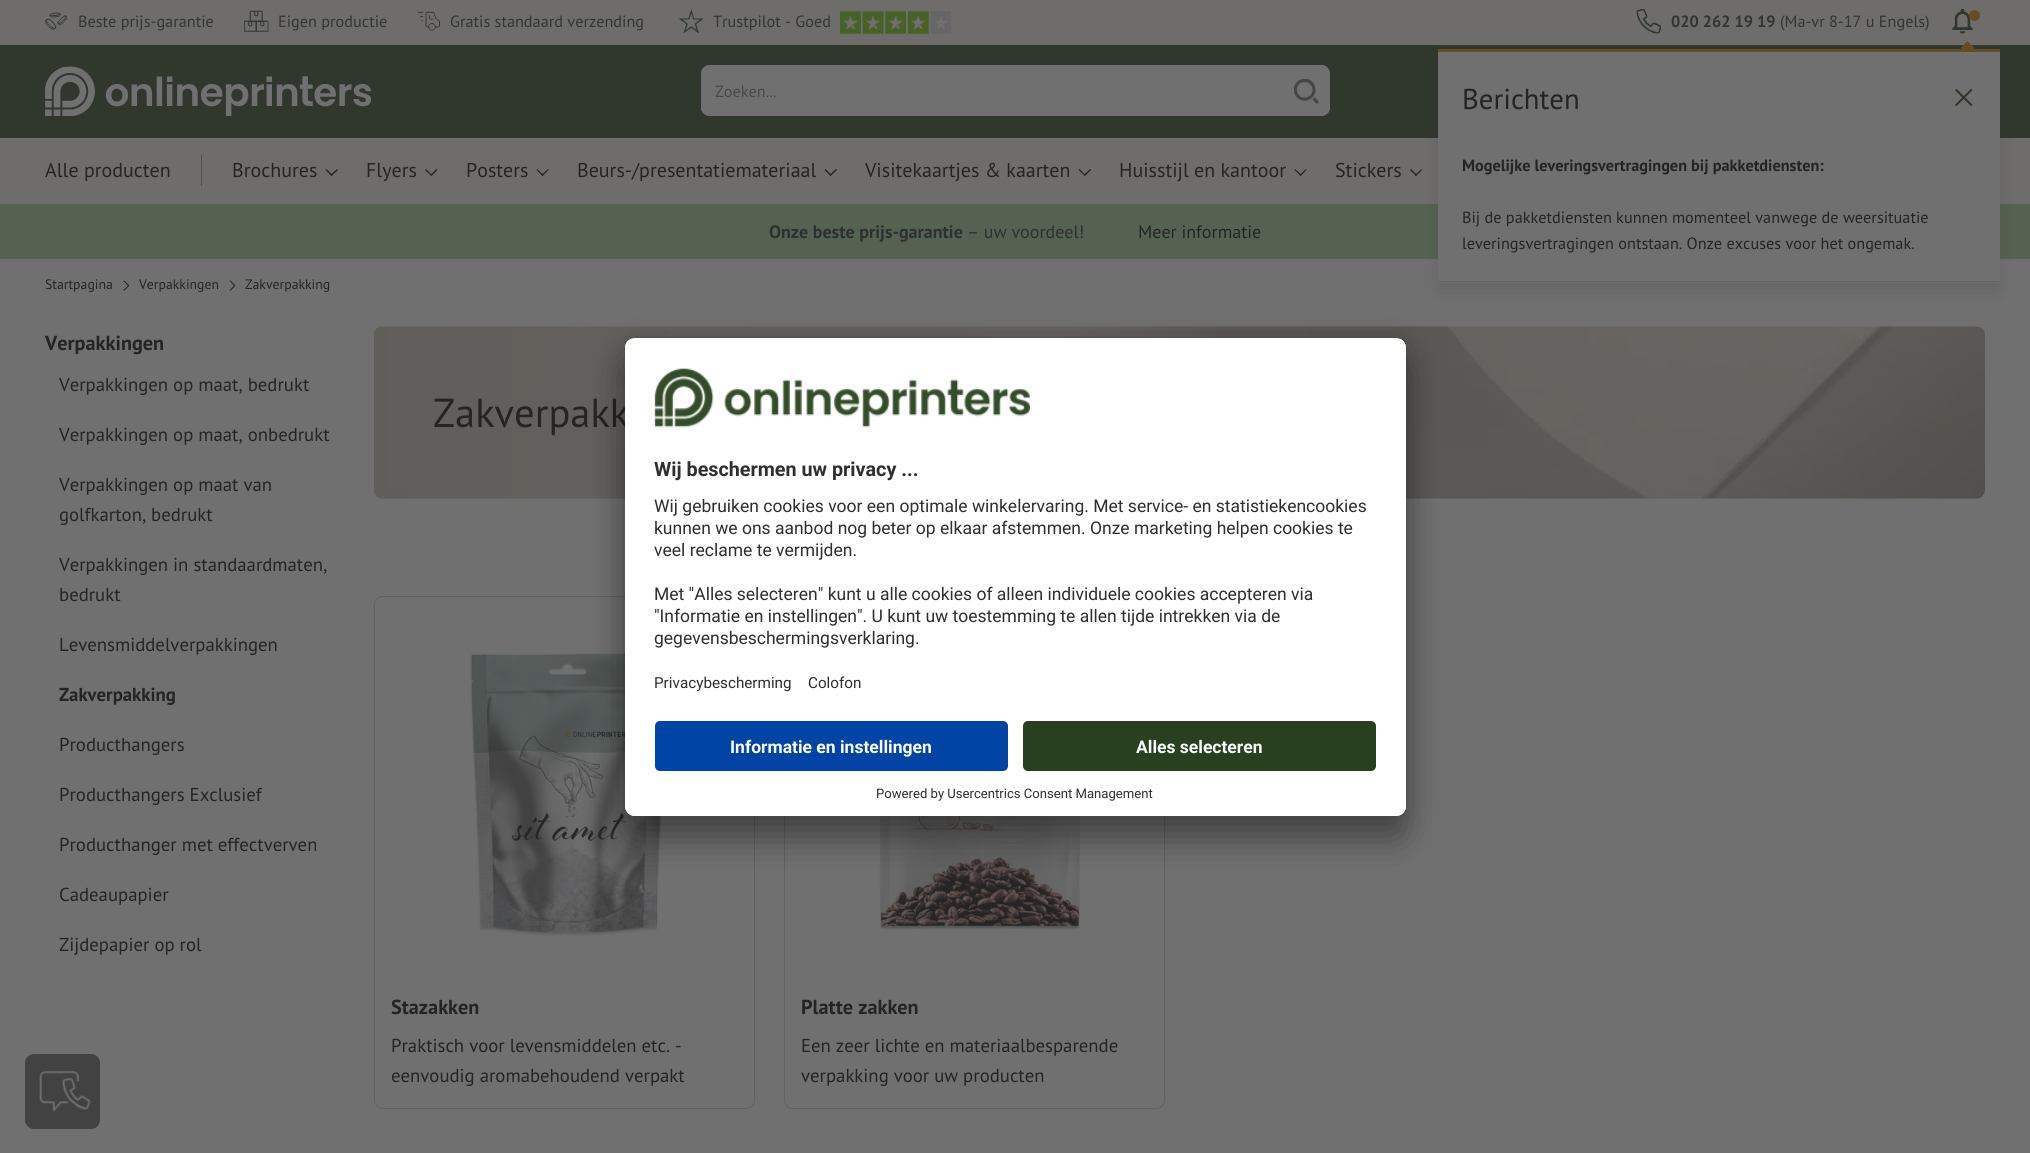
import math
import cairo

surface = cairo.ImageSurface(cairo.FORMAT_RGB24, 2030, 1153)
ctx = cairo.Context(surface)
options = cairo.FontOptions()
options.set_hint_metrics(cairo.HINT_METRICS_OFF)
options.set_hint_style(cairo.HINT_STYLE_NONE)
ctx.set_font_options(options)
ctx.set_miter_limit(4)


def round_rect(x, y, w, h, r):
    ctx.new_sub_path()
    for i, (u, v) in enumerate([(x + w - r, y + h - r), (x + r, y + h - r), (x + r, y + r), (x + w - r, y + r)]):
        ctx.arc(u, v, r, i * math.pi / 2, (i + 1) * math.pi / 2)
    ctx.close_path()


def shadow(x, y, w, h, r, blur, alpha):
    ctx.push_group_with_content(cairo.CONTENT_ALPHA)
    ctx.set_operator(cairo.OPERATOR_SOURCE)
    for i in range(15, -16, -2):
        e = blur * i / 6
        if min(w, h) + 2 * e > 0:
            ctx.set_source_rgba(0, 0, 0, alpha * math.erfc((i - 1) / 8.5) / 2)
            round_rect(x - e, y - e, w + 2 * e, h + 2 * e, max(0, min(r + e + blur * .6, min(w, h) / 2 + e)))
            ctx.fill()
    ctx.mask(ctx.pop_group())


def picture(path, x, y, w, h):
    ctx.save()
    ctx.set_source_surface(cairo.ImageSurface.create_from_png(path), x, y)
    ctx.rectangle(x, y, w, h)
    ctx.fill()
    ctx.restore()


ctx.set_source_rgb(0.439, 0.439, 0.439)
ctx.paint()
ctx.set_source_rgb(0.431, 0.427, 0.424)
ctx.rectangle(0, 0, 2030, 45)
ctx.fill()
picture("img1.png", 45, 12, 23, 18)
ctx.select_font_face("PT Sans")
ctx.set_font_size(16.25)
ctx.set_source_rgb(0.188, 0.216, 0.176)
ctx.move_to(78, 27)
ctx.show_text("Beste prijs-garantie")
picture("img2.png", 244, 10, 25, 22)
ctx.move_to(278, 27)
ctx.show_text("Eigen productie")
picture("img3.png", 417, 11, 23, 20)
ctx.move_to(450, 27)
ctx.show_text("Gratis standaard verzending")
picture("img4.png", 679, 9, 25, 25)
ctx.move_to(713, 27)
ctx.show_text("Trustpilot - Goed")
picture("img5.png", 840, 11, 112, 23)
picture("img6.png", 1636, 9, 25, 25)
ctx.select_font_face("PT Sans", cairo.FONT_SLANT_NORMAL, cairo.FONT_WEIGHT_BOLD)
ctx.move_to(1671, 27)
ctx.show_text("020 262 19 19")
ctx.select_font_face("PT Sans")
ctx.move_to(1780, 27)
ctx.show_text("(Ma-vr 8-17 u Engels)")
picture("img7.png", 1952, 9, 21, 25)
ctx.set_source_rgb(0.4, 0.298, 0.141)
ctx.arc(1974.5, 15.5, 5.5, 0, 2 * math.pi)
ctx.fill()
ctx.set_source_rgb(0.188, 0.216, 0.176)
ctx.rectangle(0, 45, 2030, 93)
ctx.fill()
ctx.set_source_rgb(0.4, 0.298, 0.141)
ctx.new_path()
ctx.move_to(1967.5, 41)
ctx.line_to(1974.5, 48)
ctx.line_to(1967.5, 55)
ctx.line_to(1960.5, 48)
ctx.close_path()
ctx.fill()
ctx.set_source_rgb(0.431, 0.427, 0.424)
ctx.rectangle(0, 138, 2030, 66)
ctx.fill()
ctx.set_source_rgb(0.141, 0.141, 0.141)
ctx.new_path()
ctx.move_to(1422, 170)
ctx.line_to(1416, 176)
ctx.line_to(1415, 175)
ctx.line_to(1421.5, 169)
ctx.close_path()
ctx.fill()
ctx.new_path()
ctx.move_to(1417, 175)
ctx.line_to(1416, 176)
ctx.line_to(1410, 170)
ctx.line_to(1411, 169)
ctx.close_path()
ctx.fill()
ctx.set_source_rgb(0.333, 0.384, 0.318)
ctx.rectangle(0, 204, 2030, 55)
ctx.fill()
ctx.set_source_rgb(0.141, 0.141, 0.141)
shadow(1438, 58, 562, 233, 0, 8, 0.15)
ctx.set_source_rgb(0.439, 0.439, 0.439)
ctx.rectangle(1438, 52, 562, 231)
ctx.fill()
ctx.set_source_rgb(0.4, 0.298, 0.141)
ctx.rectangle(1438, 49, 562, 3)
ctx.fill()
ctx.set_font_size(28.75)
ctx.set_source_rgb(0.141, 0.141, 0.141)
ctx.move_to(1462, 109)
ctx.show_text("Berichten")
picture("img8.png", 1955, 88, 18, 19)
ctx.set_source_rgb(0.384, 0.384, 0.384)
ctx.rectangle(1438, 281, 562, 1)
ctx.fill()
ctx.select_font_face("PT Sans", cairo.FONT_SLANT_NORMAL, cairo.FONT_WEIGHT_BOLD)
ctx.set_font_size(16.25)
ctx.set_source_rgb(0.141, 0.141, 0.141)
ctx.move_to(1462, 171)
ctx.show_text("Mogelijke leveringsvertragingen bij pakketdiensten:")
ctx.select_font_face("PT Sans")
ctx.move_to(1462, 223)
ctx.show_text("Bij de pakketdiensten kunnen momenteel vanwege de weersituatie")
ctx.move_to(1462, 249)
ctx.show_text("leveringsvertragingen ontstaan. Onze excuses voor het ongemak.")
picture("img9.png", 45, 66, 326, 50)
ctx.set_source_rgb(0.439, 0.439, 0.439)
ctx.new_path()
ctx.move_to(710, 65)
ctx.line_to(1284, 65)
ctx.line_to(1284, 116)
ctx.line_to(710, 116)
ctx.curve_to(705, 116, 701, 112, 701, 107)
ctx.line_to(701, 74)
ctx.curve_to(701, 69, 705, 65, 710, 65)
ctx.close_path()
ctx.fill()
ctx.set_fill_rule(cairo.FILL_RULE_EVEN_ODD)
ctx.new_path()
ctx.move_to(710, 65)
ctx.line_to(1284, 65)
ctx.line_to(1284, 116)
ctx.line_to(710, 116)
ctx.curve_to(705, 116, 701, 112, 701, 108)
ctx.line_to(701, 74)
ctx.curve_to(701, 69, 705, 65, 710, 65)
ctx.close_path()
ctx.move_to(710, 66)
ctx.line_to(1284, 66)
ctx.line_to(1284, 115)
ctx.line_to(710, 115)
ctx.curve_to(706, 115, 702, 112, 702, 108)
ctx.line_to(702, 74)
ctx.curve_to(702, 70, 706, 66, 710, 66)
ctx.close_path()
ctx.fill()
ctx.set_source_rgb(0.278, 0.278, 0.278)
ctx.move_to(715, 97)
ctx.show_text("Zoeken...")
ctx.set_source_rgb(0.439, 0.439, 0.439)
ctx.new_path()
ctx.move_to(1284, 65)
ctx.line_to(1321, 65)
ctx.curve_to(1326, 65, 1330, 69, 1330, 74)
ctx.line_to(1330, 107)
ctx.curve_to(1330, 112, 1326, 116, 1321, 116)
ctx.line_to(1284, 116)
ctx.close_path()
ctx.fill()
ctx.new_path()
ctx.move_to(1284, 65)
ctx.line_to(1321, 65)
ctx.curve_to(1326, 65, 1330, 69, 1330, 74)
ctx.line_to(1330, 108)
ctx.curve_to(1330, 112, 1326, 116, 1321, 116)
ctx.line_to(1284, 116)
ctx.close_path()
ctx.move_to(1284, 66)
ctx.line_to(1321, 66)
ctx.curve_to(1325, 66, 1329, 70, 1329, 74)
ctx.line_to(1329, 108)
ctx.curve_to(1329, 112, 1325, 115, 1321, 115)
ctx.line_to(1284, 115)
ctx.close_path()
ctx.fill()
picture("img10.png", 1294, 79, 25, 25)
ctx.set_source_rgb(0.31, 0.31, 0.31)
ctx.rectangle(201, 155, 1, 31)
ctx.fill()
ctx.set_font_size(20)
ctx.set_source_rgb(0.141, 0.141, 0.141)
ctx.move_to(45, 177)
ctx.show_text("Alle producten")
ctx.move_to(232, 177)
ctx.show_text("Brochures")
ctx.set_fill_rule(cairo.FILL_RULE_WINDING)
ctx.new_path()
ctx.move_to(338, 170)
ctx.line_to(331.5, 176)
ctx.line_to(330.5, 175)
ctx.line_to(337, 169)
ctx.close_path()
ctx.fill()
ctx.new_path()
ctx.move_to(332.5, 175)
ctx.line_to(331.5, 176)
ctx.line_to(325.5, 170)
ctx.line_to(326.5, 169)
ctx.close_path()
ctx.fill()
ctx.move_to(366, 177)
ctx.show_text("Flyers")
ctx.new_path()
ctx.move_to(437.5, 170)
ctx.line_to(431.5, 176)
ctx.line_to(430.5, 175)
ctx.line_to(436.5, 169)
ctx.close_path()
ctx.fill()
ctx.new_path()
ctx.move_to(432, 175)
ctx.line_to(431.5, 176)
ctx.line_to(425, 170)
ctx.line_to(426, 169)
ctx.close_path()
ctx.fill()
ctx.move_to(466, 177)
ctx.show_text("Posters")
ctx.new_path()
ctx.move_to(548.5, 170)
ctx.line_to(542.5, 176)
ctx.line_to(541.5, 175)
ctx.line_to(548, 169)
ctx.close_path()
ctx.fill()
ctx.new_path()
ctx.move_to(543.5, 175)
ctx.line_to(542.5, 176)
ctx.line_to(536.5, 170)
ctx.line_to(537, 169)
ctx.close_path()
ctx.fill()
ctx.move_to(577, 177)
ctx.show_text("Beurs-/presentatiemateriaal")
ctx.new_path()
ctx.move_to(837, 170)
ctx.line_to(830.5, 176)
ctx.line_to(829.5, 175)
ctx.line_to(836, 169)
ctx.close_path()
ctx.fill()
ctx.new_path()
ctx.move_to(831.5, 175)
ctx.line_to(830.5, 176)
ctx.line_to(824.5, 170)
ctx.line_to(825.5, 169)
ctx.close_path()
ctx.fill()
ctx.move_to(865, 177)
ctx.show_text("Visitekaartjes & kaarten")
ctx.new_path()
ctx.move_to(1091, 170)
ctx.line_to(1085, 176)
ctx.line_to(1084, 175)
ctx.line_to(1090, 169)
ctx.close_path()
ctx.fill()
ctx.new_path()
ctx.move_to(1085.5, 175)
ctx.line_to(1085, 176)
ctx.line_to(1078.5, 170)
ctx.line_to(1079.5, 169)
ctx.close_path()
ctx.fill()
ctx.move_to(1119, 177)
ctx.show_text("Huisstijl en kantoor")
ctx.new_path()
ctx.move_to(1306.5, 170)
ctx.line_to(1300.5, 176)
ctx.line_to(1299.5, 175)
ctx.line_to(1306, 169)
ctx.close_path()
ctx.fill()
ctx.new_path()
ctx.move_to(1301.5, 175)
ctx.line_to(1300.5, 176)
ctx.line_to(1294.5, 170)
ctx.line_to(1295, 169)
ctx.close_path()
ctx.fill()
ctx.move_to(1335, 177)
ctx.show_text("Stickers")
ctx.select_font_face("PT Sans", cairo.FONT_SLANT_NORMAL, cairo.FONT_WEIGHT_BOLD)
ctx.set_font_size(18)
ctx.set_source_rgb(0.18, 0.184, 0.188)
ctx.move_to(769, 238)
ctx.show_text("Onze beste prijs-garantie")
ctx.select_font_face("PT Sans")
ctx.move_to(967, 238)
ctx.show_text("– uw voordeel!")
ctx.set_source_rgb(0.141, 0.141, 0.141)
ctx.move_to(1138, 238)
ctx.show_text("Meer informatie")
ctx.set_font_size(13.75)
ctx.move_to(45, 289)
ctx.show_text("Startpagina")
picture("img11.png", 123, 280, 7, 11)
ctx.move_to(139, 289)
ctx.show_text("Verpakkingen")
picture("img12.png", 229, 280, 7, 11)
ctx.move_to(245, 289)
ctx.show_text("Zakverpakking")
ctx.select_font_face("PT Sans", cairo.FONT_SLANT_NORMAL, cairo.FONT_WEIGHT_BOLD)
ctx.set_font_size(20.25)
ctx.move_to(45, 350)
ctx.show_text("Verpakkingen")
ctx.select_font_face("PT Sans")
ctx.set_font_size(18.75)
ctx.move_to(59, 391)
ctx.show_text("Verpakkingen op maat, bedrukt")
ctx.move_to(59, 441)
ctx.show_text("Verpakkingen op maat, onbedrukt")
ctx.move_to(59, 491)
ctx.show_text("Verpakkingen op maat van")
ctx.move_to(59, 521)
ctx.show_text("golfkarton, bedrukt")
ctx.move_to(59, 571)
ctx.show_text("Verpakkingen in standaardmaten,")
ctx.move_to(59, 601)
ctx.show_text("bedrukt")
ctx.move_to(59, 651)
ctx.show_text("Levensmiddelverpakkingen")
ctx.select_font_face("PT Sans", cairo.FONT_SLANT_NORMAL, cairo.FONT_WEIGHT_BOLD)
ctx.move_to(59, 701)
ctx.show_text("Zakverpakking")
ctx.select_font_face("PT Sans")
ctx.move_to(59, 751)
ctx.show_text("Producthangers")
ctx.move_to(59, 801)
ctx.show_text("Producthangers Exclusief")
ctx.move_to(59, 851)
ctx.show_text("Producthanger met effectverven")
ctx.move_to(59, 901)
ctx.show_text("Cadeaupapier")
ctx.move_to(59, 951)
ctx.show_text("Zijdepapier op rol")
picture("img13.png", 373, 326, 1612, 173)
ctx.set_font_size(40.5)
ctx.move_to(433, 427)
ctx.show_text("Zakverpakk")
round_rect(374.5, 596.5, 380, 512, 8.5)
ctx.set_source_rgb(0.384, 0.384, 0.384)
ctx.set_line_width(1)
ctx.stroke()
picture("img14.png", 375, 603, 294, 334)
ctx.select_font_face("PT Sans", cairo.FONT_SLANT_NORMAL, cairo.FONT_WEIGHT_BOLD)
ctx.set_font_size(20.25)
ctx.set_source_rgb(0.141, 0.141, 0.141)
ctx.move_to(391, 1014)
ctx.show_text("Stazakken")
ctx.select_font_face("PT Sans")
ctx.set_font_size(18.75)
ctx.move_to(391, 1052)
ctx.show_text("Praktisch voor levensmiddelen etc. -")
ctx.move_to(391, 1082)
ctx.show_text("eenvoudig aromabehoudend verpakt")
round_rect(784.5, 596.5, 380, 512, 8.5)
ctx.set_source_rgb(0.384, 0.384, 0.384)
ctx.stroke()
picture("img15.png", 785, 816, 296, 115)
ctx.select_font_face("PT Sans", cairo.FONT_SLANT_NORMAL, cairo.FONT_WEIGHT_BOLD)
ctx.set_font_size(20.25)
ctx.set_source_rgb(0.141, 0.141, 0.141)
ctx.move_to(801, 1014)
ctx.show_text("Platte zakken")
ctx.select_font_face("PT Sans")
ctx.set_font_size(18.75)
ctx.move_to(801, 1052)
ctx.show_text("Een zeer lichte en materiaalbesparende")
ctx.move_to(801, 1082)
ctx.show_text("verpakking voor uw producten")
ctx.set_source_rgb(0, 0, 0)
shadow(625, 363, 781, 478, 10, 17.5, 0.3)
shadow(625, 344, 781, 479, 10, 16, 0.22)
ctx.set_source_rgb(1, 1, 1)
round_rect(625, 338, 781, 478, 10)
ctx.fill()
ctx.save()
round_rect(625, 338, 781, 478, 10)
ctx.clip()
ctx.new_path()
ctx.move_to(635, 338)
ctx.line_to(1396, 338)
ctx.curve_to(1401.5, 338, 1406, 342.5, 1406, 348)
ctx.line_to(1406, 711)
ctx.line_to(625, 711)
ctx.line_to(625, 348)
ctx.curve_to(625, 342.5, 629.5, 338, 635, 338)
ctx.close_path()
ctx.clip()
ctx.rectangle(625, 339, 781, 372)
ctx.fill()
ctx.restore()
picture("img16.png", 654, 368, 376, 60)
ctx.select_font_face("Roboto", cairo.FONT_SLANT_NORMAL, cairo.FONT_WEIGHT_BOLD)
ctx.set_font_size(19.75)
ctx.set_source_rgb(0.18, 0.184, 0.188)
ctx.move_to(654, 476)
ctx.show_text("Wij beschermen uw privacy ...")
ctx.select_font_face("Roboto")
ctx.set_font_size(17.5)
ctx.move_to(654, 512)
ctx.show_text("Wij gebruiken cookies voor een optimale winkelervaring. Met service- en statistiekencookies")
ctx.move_to(654, 534)
ctx.show_text("kunnen we ons aanbod nog beter op elkaar afstemmen. Onze marketing helpen cookies te")
ctx.move_to(654, 556)
ctx.show_text("veel reclame te vermijden.")
ctx.move_to(654, 600)
ctx.show_text("Met \"Alles selecteren\" kunt u alle cookies of alleen individuele cookies accepteren via")
ctx.move_to(654, 622)
ctx.show_text("\"Informatie en instellingen\". U kunt uw toestemming te allen tijde intrekken via de")
ctx.move_to(654, 644)
ctx.show_text("gegevensbeschermingsverklaring.")
ctx.set_font_size(15.25)
ctx.move_to(654, 688)
ctx.show_text("Privacybescherming")
ctx.move_to(808, 688)
ctx.show_text("Colofon")
ctx.set_source_rgb(1, 1, 1)
ctx.new_path()
ctx.move_to(625, 711)
ctx.line_to(1406, 711)
ctx.line_to(1406, 806)
ctx.curve_to(1406, 811.5, 1401.5, 816, 1396, 816)
ctx.line_to(635, 816)
ctx.curve_to(629.5, 816, 625, 811.5, 625, 806)
ctx.close_path()
ctx.fill()
ctx.set_source_rgb(0, 0.271, 0.647)
round_rect(655, 721, 353, 50, 5)
ctx.fill()
ctx.select_font_face("Roboto", cairo.FONT_SLANT_NORMAL, cairo.FONT_WEIGHT_BOLD)
ctx.set_font_size(17.5)
ctx.set_source_rgb(1, 1, 1)
ctx.move_to(730, 753)
ctx.show_text("Informatie en instellingen")
ctx.set_source_rgb(0.157, 0.251, 0.125)
round_rect(1023, 721, 353, 50, 5)
ctx.fill()
ctx.set_source_rgb(1, 1, 1)
ctx.move_to(1136, 753)
ctx.show_text("Alles selecteren")
ctx.select_font_face("Roboto")
ctx.set_font_size(13.1)
ctx.set_source_rgb(0.18, 0.184, 0.188)
ctx.move_to(876, 798)
ctx.show_text("Powered by Usercentrics Consent Management")
ctx.set_source_rgb(0.259, 0.259, 0.259)
round_rect(25, 1054, 75, 75, 9)
ctx.fill()
picture("img17.png", 39, 1071, 52, 41)
surface.write_to_png("page.png")
